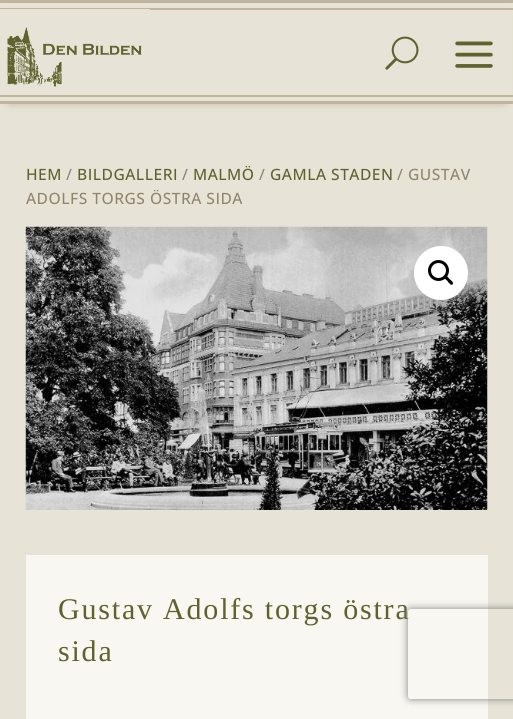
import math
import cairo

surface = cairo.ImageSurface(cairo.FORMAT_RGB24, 513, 719)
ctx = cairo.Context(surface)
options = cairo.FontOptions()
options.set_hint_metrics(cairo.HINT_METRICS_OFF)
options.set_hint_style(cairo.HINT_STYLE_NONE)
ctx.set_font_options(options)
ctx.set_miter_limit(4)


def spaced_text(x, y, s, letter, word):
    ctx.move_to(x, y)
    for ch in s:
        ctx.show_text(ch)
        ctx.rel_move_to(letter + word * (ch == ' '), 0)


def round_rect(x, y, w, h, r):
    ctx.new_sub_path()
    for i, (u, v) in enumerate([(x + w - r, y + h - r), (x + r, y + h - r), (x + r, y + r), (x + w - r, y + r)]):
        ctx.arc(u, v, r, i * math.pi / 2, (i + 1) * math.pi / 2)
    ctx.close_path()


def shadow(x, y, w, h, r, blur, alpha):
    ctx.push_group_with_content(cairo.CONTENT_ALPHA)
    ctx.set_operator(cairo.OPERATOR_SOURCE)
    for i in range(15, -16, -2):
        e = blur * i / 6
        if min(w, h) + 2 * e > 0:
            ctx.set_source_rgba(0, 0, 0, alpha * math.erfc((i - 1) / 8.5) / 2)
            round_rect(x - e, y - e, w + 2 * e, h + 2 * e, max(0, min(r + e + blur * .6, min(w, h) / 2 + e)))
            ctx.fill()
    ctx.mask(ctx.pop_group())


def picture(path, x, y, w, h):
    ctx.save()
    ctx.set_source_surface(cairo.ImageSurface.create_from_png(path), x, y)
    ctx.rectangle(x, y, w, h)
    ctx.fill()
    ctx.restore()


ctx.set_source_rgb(0.906, 0.894, 0.843)
ctx.paint()
ctx.set_source_rgb(0.208, 0.196, 0.129)
shadow(9, 17, 495, 85, 0, 5, 0.32)
ctx.set_source_rgb(0.906, 0.894, 0.843)
ctx.rectangle(1, 9, 511, 92)
ctx.fill()
ctx.set_source_rgb(0.757, 0.71, 0.616)
ctx.rectangle(0, 0, 513, 3)
ctx.fill()
ctx.rectangle(0, 101, 513, 3)
ctx.fill()
ctx.rectangle(0, 8, 513, 2)
ctx.fill()
ctx.rectangle(0, 95, 513, 2)
ctx.fill()
ctx.rectangle(4, 13, 142, 78)
ctx.set_source_rgb(0.906, 0.894, 0.843)
ctx.set_line_width(8)
ctx.stroke()
picture("img1.png", 7, 27, 135, 60)
picture("img2.png", 385, 36, 34, 34)
picture("img3.png", 455, 41, 38, 27)
ctx.select_font_face("Open Sans Medium")
ctx.set_font_size(15.6)
ctx.set_source_rgb(0.373, 0.384, 0.176)
spaced_text(26, 180, "HEM", 0.5, 0)
ctx.set_source_rgb(0.569, 0.522, 0.427)
spaced_text(66, 180, "/", 0.5, 0)
ctx.set_source_rgb(0.373, 0.384, 0.176)
spaced_text(77, 180, "BILDGALLERI", 0.5, 0)
ctx.set_source_rgb(0.569, 0.522, 0.427)
spaced_text(182, 180, "/", 0.5, 0)
ctx.set_source_rgb(0.373, 0.384, 0.176)
spaced_text(193, 180, "MALMÖ", 0.5, 0)
ctx.set_source_rgb(0.569, 0.522, 0.427)
spaced_text(259, 180, "/", 0.5, 0)
ctx.set_source_rgb(0.373, 0.384, 0.176)
spaced_text(270, 180, "GAMLA STADEN", 0.5, 0)
ctx.set_source_rgb(0.569, 0.522, 0.427)
spaced_text(397, 180, "/ GUSTAV", 0.5, 0)
spaced_text(26, 204, "ADOLFS TORGS ÖSTRA SIDA", 0.5, 0)
picture("img4.png", 25, 226, 463, 284)
ctx.set_source_rgb(1, 1, 1)
ctx.arc(441, 273, 27, 0, 2 * math.pi)
ctx.fill()
ctx.arc(438.5, 270.5, 9, 0, 2 * math.pi)
ctx.set_source_rgb(0, 0, 0)
ctx.set_line_width(3)
ctx.stroke()
ctx.new_path()
ctx.move_to(444, 276)
ctx.curve_to(446, 274, 448.5, 278, 449.5, 279)
ctx.curve_to(450.5, 280, 454.5, 282.5, 452.5, 284.5)
ctx.curve_to(451, 286, 448, 282, 447.5, 281)
ctx.curve_to(446.5, 280, 442.5, 277.5, 444, 276)
ctx.close_path()
ctx.fill()
ctx.set_source_rgb(0.969, 0.965, 0.949)
ctx.rectangle(26, 555, 462, 164)
ctx.fill()
ctx.select_font_face("Liberation Serif")
ctx.set_font_size(30)
ctx.set_source_rgb(0.373, 0.384, 0.176)
spaced_text(58, 619, "Gustav Adolfs torgs östra", 1.8, 0)
spaced_text(58, 661, "sida", 1.8, 0)
ctx.save()
ctx.set_fill_rule(cairo.FILL_RULE_EVEN_ODD)
ctx.new_path()
ctx.move_to(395, 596)
ctx.line_to(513, 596)
ctx.line_to(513, 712)
ctx.line_to(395, 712)
ctx.close_path()
ctx.move_to(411, 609)
ctx.line_to(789, 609)
ctx.curve_to(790.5, 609, 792, 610.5, 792, 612)
ctx.line_to(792, 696)
ctx.curve_to(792, 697.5, 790.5, 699, 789, 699)
ctx.line_to(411, 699)
ctx.curve_to(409.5, 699, 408, 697.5, 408, 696)
ctx.line_to(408, 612)
ctx.curve_to(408, 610.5, 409.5, 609, 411, 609)
ctx.close_path()
ctx.clip()
ctx.set_source_rgb(0.502, 0.502, 0.502)
shadow(408, 609, 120, 90, 3, 4, 1)
ctx.restore()
surface.write_to_png("page.png")
